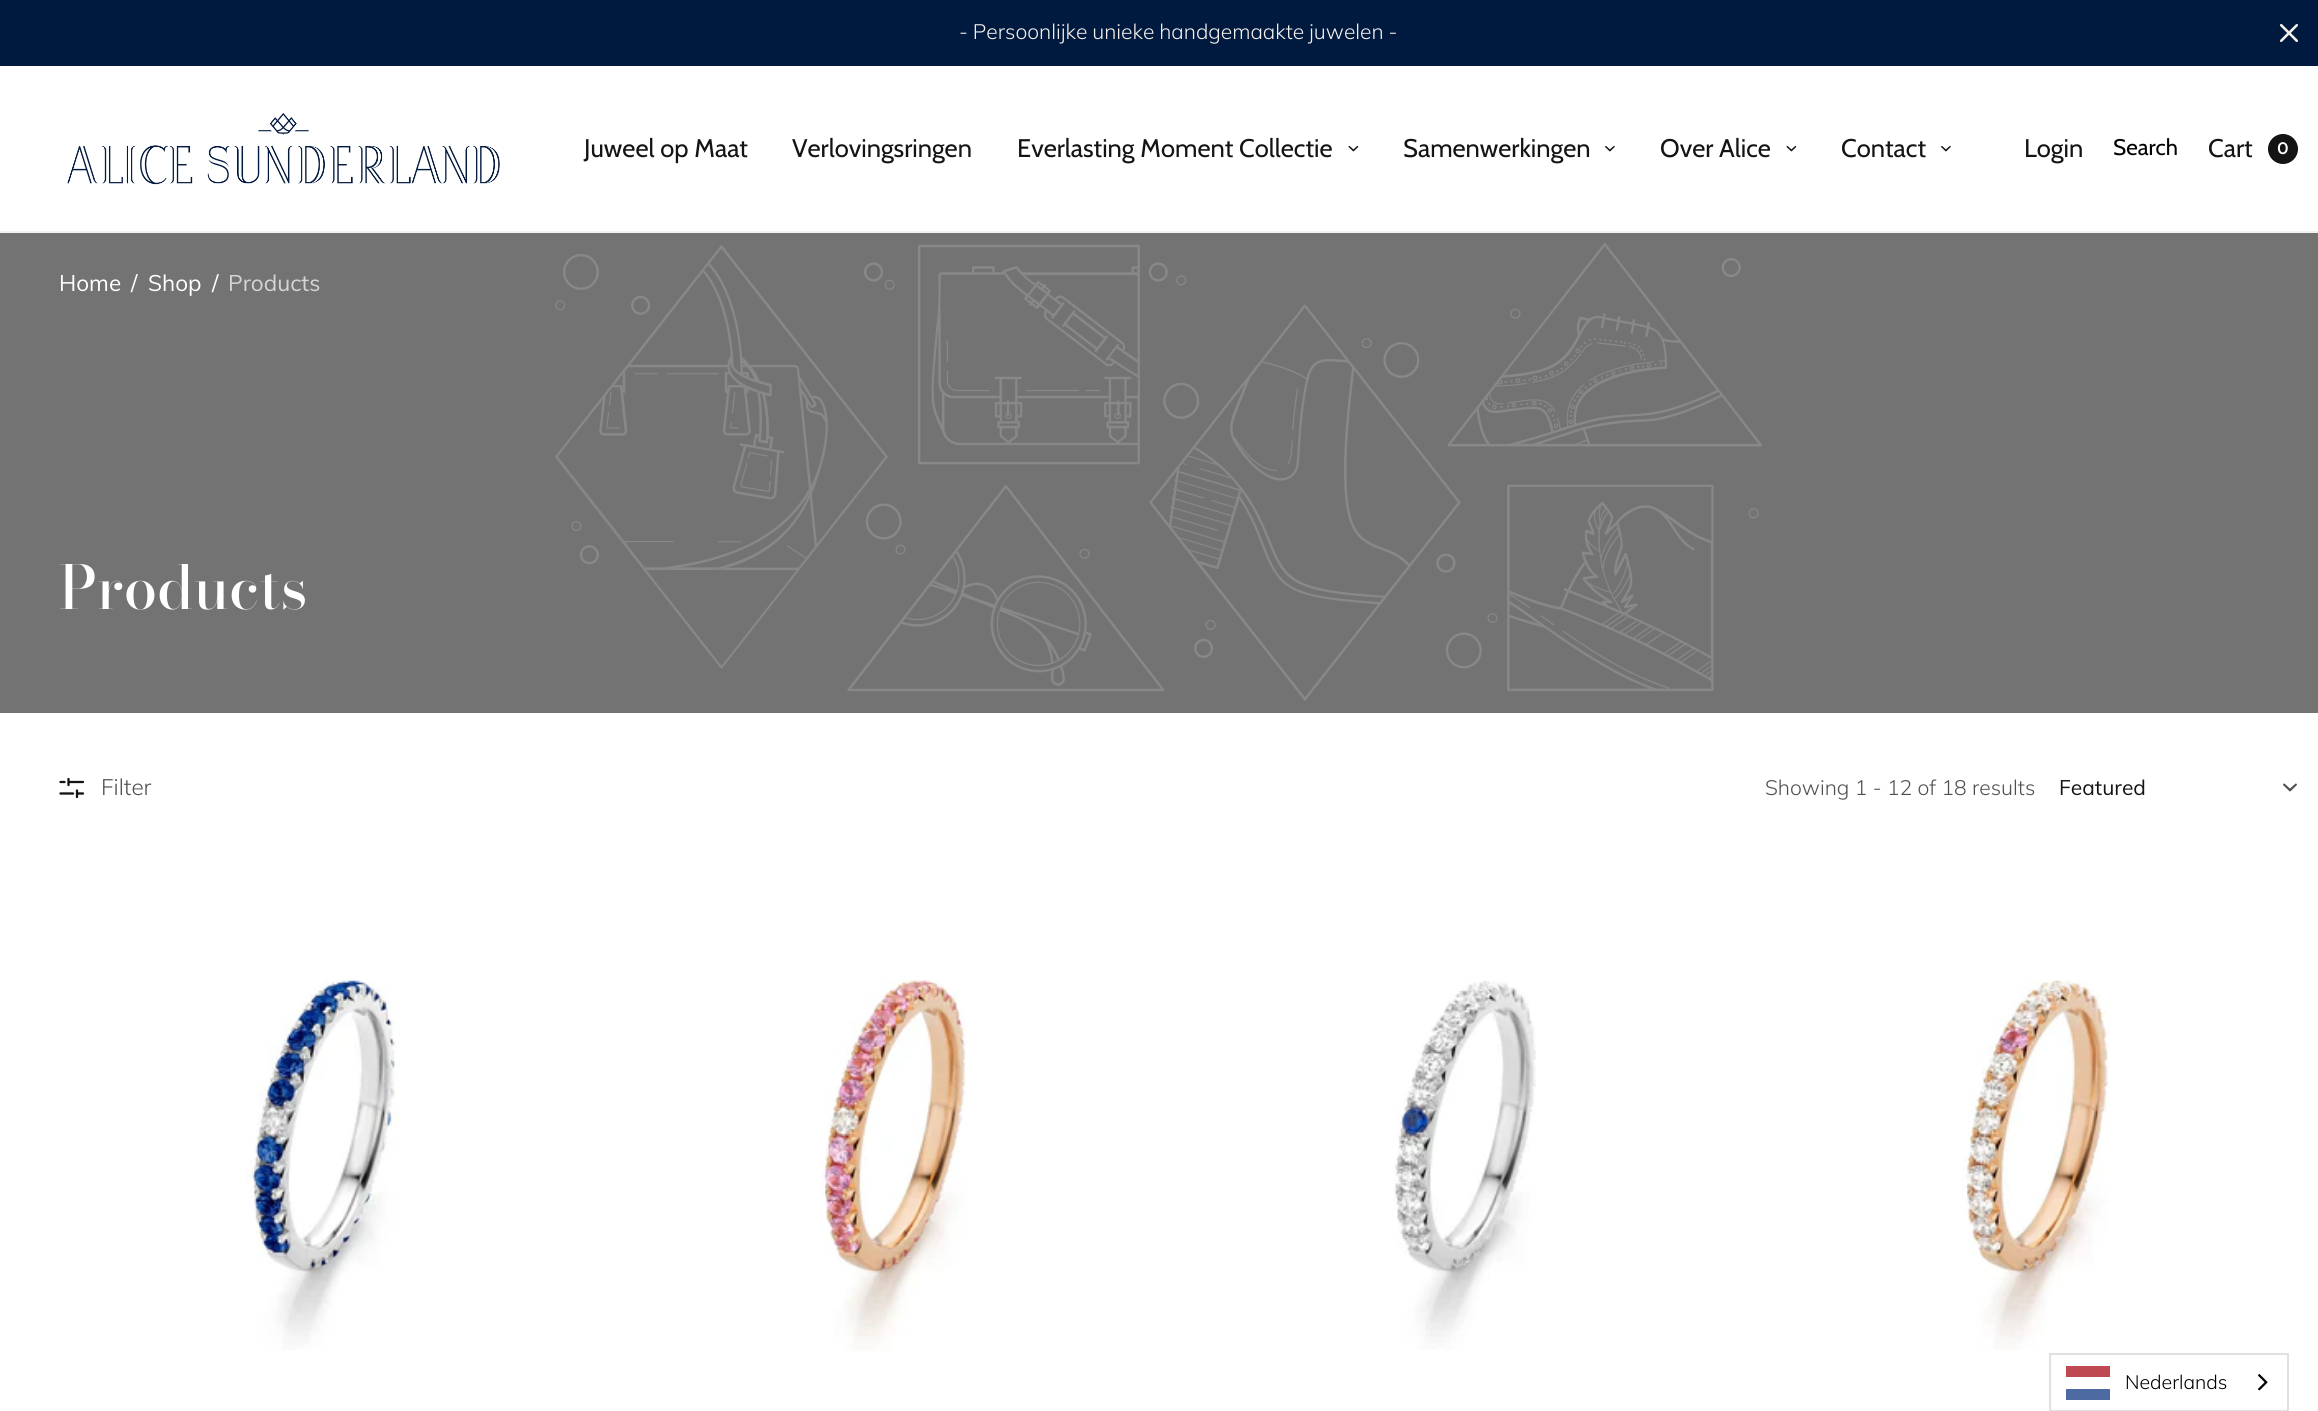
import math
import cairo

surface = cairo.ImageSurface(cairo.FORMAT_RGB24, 2318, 1411)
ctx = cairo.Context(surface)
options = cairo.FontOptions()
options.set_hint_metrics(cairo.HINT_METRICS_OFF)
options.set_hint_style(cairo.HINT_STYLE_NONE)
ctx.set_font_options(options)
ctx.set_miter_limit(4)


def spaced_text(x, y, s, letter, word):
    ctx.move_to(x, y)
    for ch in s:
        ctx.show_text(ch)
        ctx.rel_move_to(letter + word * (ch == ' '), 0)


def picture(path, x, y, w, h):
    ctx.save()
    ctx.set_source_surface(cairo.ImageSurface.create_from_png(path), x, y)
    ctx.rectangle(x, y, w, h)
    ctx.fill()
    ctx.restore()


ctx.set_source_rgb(1, 1, 1)
ctx.paint()
ctx.set_source_rgb(0, 0.102, 0.247)
ctx.rectangle(0, 0, 2318, 66)
ctx.fill()
ctx.select_font_face("Muli Light")
ctx.set_font_size(21)
ctx.set_source_rgb(0.961, 0.941, 0.925)
spaced_text(959, 39, "- Persoonlijke unieke handgemaakte juwelen -", 0, -0.5)
picture("img1.png", 2280, 24, 18, 18)
ctx.rectangle(0, 231, 2318, 2)
ctx.fill()
picture("img2.png", 67, 112, 433, 73)
ctx.select_font_face("Cabin")
ctx.set_font_size(25.5)
ctx.set_source_rgb(0.082, 0.082, 0.082)
ctx.move_to(584, 157)
ctx.show_text("Juweel op Maat")
ctx.move_to(792, 157)
ctx.show_text("Verlovingsringen")
ctx.move_to(1017, 157)
ctx.show_text("Everlasting Moment Collectie")
picture("img3.png", 1348, 145, 11, 7)
ctx.move_to(1403, 157)
ctx.show_text("Samenwerkingen")
picture("img4.png", 1605, 145, 10, 7)
ctx.move_to(1660, 157)
ctx.show_text("Over Alice")
picture("img3.png", 1786, 145, 11, 7)
ctx.move_to(1841, 157)
ctx.show_text("Contact")
picture("img4.png", 1941, 145, 10, 7)
ctx.move_to(2024, 157)
ctx.show_text("Login")
ctx.set_font_size(22.5)
ctx.set_source_rgb(0, 0, 0)
ctx.move_to(2113, 155)
ctx.show_text("Search")
ctx.set_font_size(25.5)
ctx.set_source_rgb(0.082, 0.082, 0.082)
ctx.move_to(2208, 157)
ctx.show_text("Cart")
ctx.new_path()
ctx.arc(2283, 149, 15, 0, 2 * math.pi)
ctx.fill()
ctx.select_font_face("Cabin", cairo.FONT_SLANT_NORMAL, cairo.FONT_WEIGHT_BOLD)
ctx.set_font_size(16)
ctx.set_source_rgb(1, 1, 1)
ctx.move_to(2277, 154)
ctx.show_text("0")
ctx.set_source_rgb(0.451, 0.451, 0.451)
ctx.rectangle(0, 233, 2318, 480)
ctx.fill()
picture("img5.png", 555, 243, 1207, 458)
ctx.select_font_face("Muli")
ctx.set_font_size(22.5)
ctx.set_source_rgb(1, 1, 1)
ctx.move_to(59, 291)
ctx.show_text("Home")
ctx.move_to(131, 291)
ctx.show_text("/")
ctx.move_to(148, 291)
ctx.show_text("Shop")
ctx.move_to(212, 291)
ctx.show_text("/")
ctx.set_source_rgb(0.835, 0.835, 0.835)
ctx.move_to(228, 291)
ctx.show_text("Products")
ctx.select_font_face("Bodoni Moda Medium")
ctx.set_font_size(60)
ctx.set_source_rgb(1, 1, 1)
ctx.move_to(59, 609)
ctx.show_text("Products")
ctx.new_path()
ctx.move_to(73, 793.5)
ctx.line_to(60.5, 793.5)
ctx.move_to(83, 793.5)
ctx.line_to(77, 793.5)
ctx.move_to(64.5, 782)
ctx.line_to(60.5, 782)
ctx.move_to(83, 782)
ctx.line_to(68.5, 782)
ctx.move_to(68.5, 779)
ctx.line_to(68.5, 785)
ctx.move_to(77, 797)
ctx.line_to(77, 790.5)
ctx.set_source_rgb(0.082, 0.082, 0.082)
ctx.set_line_width(2.3)
ctx.set_line_cap(cairo.LINE_CAP_ROUND)
ctx.set_line_join(cairo.LINE_JOIN_ROUND)
ctx.stroke()
ctx.select_font_face("Muli Light")
ctx.set_font_size(22.5)
ctx.set_source_rgb(0.314, 0.314, 0.314)
ctx.move_to(101, 795)
ctx.show_text("Filter")
ctx.set_font_size(21)
ctx.move_to(1765, 795)
ctx.show_text("Showing 1 - 12 of 18 results")
ctx.select_font_face("Muli")
ctx.set_source_rgb(0.082, 0.082, 0.082)
ctx.move_to(2059, 795)
ctx.show_text("Featured")
picture("img6.png", 2283, 783, 14, 9)
picture("img7.png", 246, 979, 155, 371)
picture("img8.png", 821, 979, 146, 373)
picture("img9.png", 1393, 980, 143, 370)
picture("img10.png", 1963, 980, 147, 370)
ctx.rectangle(2050, 1354, 238, 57)
ctx.set_source_rgb(0.878, 0.878, 0.878)
ctx.set_line_width(2)
ctx.set_line_cap(cairo.LINE_CAP_BUTT)
ctx.set_line_join(cairo.LINE_JOIN_MITER)
ctx.stroke()
ctx.set_source_rgb(0.745, 0.286, 0.325)
ctx.rectangle(2066, 1366, 44, 11)
ctx.fill()
ctx.set_source_rgb(0.302, 0.42, 0.635)
ctx.rectangle(2066, 1389, 44, 11)
ctx.fill()
ctx.select_font_face("Muli Light")
ctx.set_font_size(19.5)
ctx.set_source_rgb(0, 0, 0)
ctx.move_to(2125, 1389)
ctx.show_text("Nederlands")
picture("img11.png", 2258, 1374, 10, 17)
surface.write_to_png("page.png")
